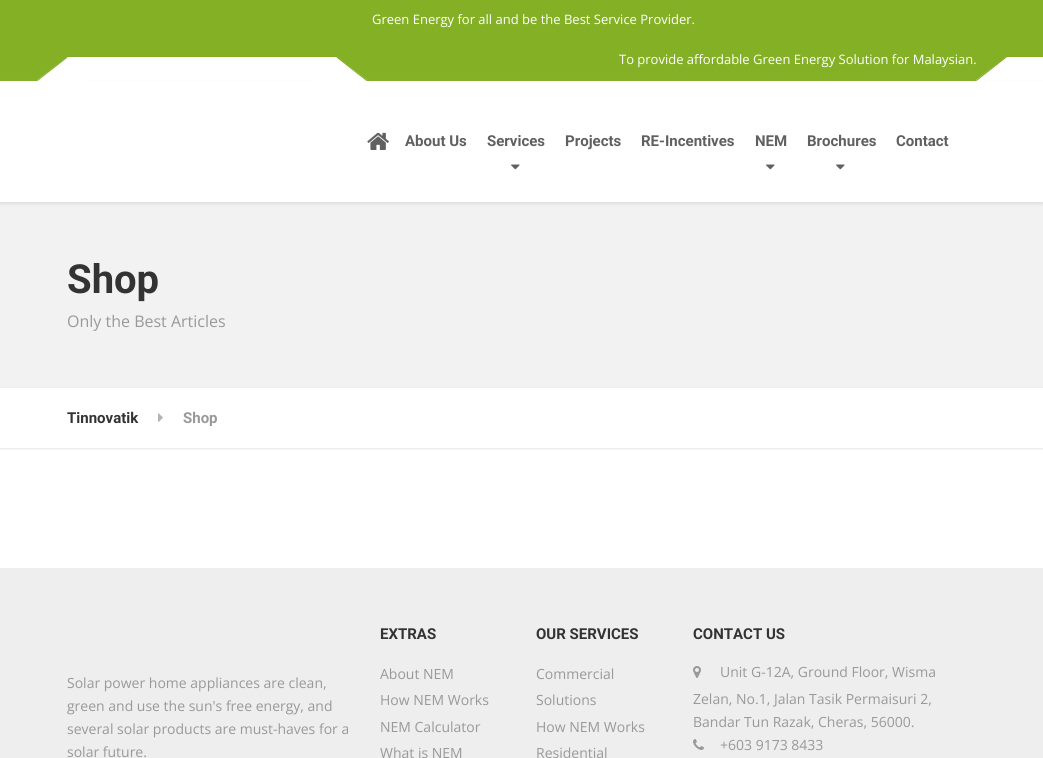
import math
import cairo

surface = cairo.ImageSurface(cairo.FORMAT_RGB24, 1043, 758)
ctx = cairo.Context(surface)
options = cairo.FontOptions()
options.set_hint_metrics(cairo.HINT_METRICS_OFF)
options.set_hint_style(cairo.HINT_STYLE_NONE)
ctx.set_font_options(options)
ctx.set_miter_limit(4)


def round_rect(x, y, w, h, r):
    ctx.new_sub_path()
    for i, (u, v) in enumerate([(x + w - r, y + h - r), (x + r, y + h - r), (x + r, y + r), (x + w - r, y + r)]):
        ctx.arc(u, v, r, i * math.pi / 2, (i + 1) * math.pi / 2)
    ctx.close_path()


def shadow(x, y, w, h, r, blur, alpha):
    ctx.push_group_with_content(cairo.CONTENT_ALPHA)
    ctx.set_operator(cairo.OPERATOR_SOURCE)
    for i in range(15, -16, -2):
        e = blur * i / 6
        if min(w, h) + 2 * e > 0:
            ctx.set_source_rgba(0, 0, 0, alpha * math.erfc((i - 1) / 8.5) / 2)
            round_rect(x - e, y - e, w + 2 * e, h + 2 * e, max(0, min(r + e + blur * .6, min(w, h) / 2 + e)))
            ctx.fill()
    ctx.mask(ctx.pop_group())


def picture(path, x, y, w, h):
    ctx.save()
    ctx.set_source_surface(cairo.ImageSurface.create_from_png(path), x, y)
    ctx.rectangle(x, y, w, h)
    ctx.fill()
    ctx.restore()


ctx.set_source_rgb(1, 1, 1)
ctx.paint()
ctx.set_source_rgb(0.518, 0.69, 0.145)
ctx.rectangle(0, 0, 1043, 80)
ctx.fill()
ctx.set_source_rgb(0.506, 0.675, 0.141)
ctx.rectangle(0, 80, 977, 1)
ctx.fill()
ctx.select_font_face("Open Sans")
ctx.set_font_size(13)
ctx.set_source_rgb(1, 1, 1)
ctx.move_to(372, 24)
ctx.show_text("Green Energy for all and be the Best Service Provider.")
ctx.rectangle(67, 57, 270, 24)
ctx.fill()
ctx.set_source_rgb(0.506, 0.675, 0.141)
ctx.rectangle(67, 56, 270, 1)
ctx.fill()
ctx.set_source_rgb(1, 1, 1)
ctx.move_to(619, 64)
ctx.show_text("To provide affordable Green Energy Solution for Malaysian.")
ctx.rectangle(1006, 57, 37, 23)
ctx.fill()
ctx.new_path()
ctx.move_to(1006, 57)
ctx.line_to(1029, 87)
ctx.line_to(999, 110)
ctx.line_to(976, 80)
ctx.close_path()
ctx.fill()
ctx.set_source_rgb(0.506, 0.675, 0.141)
ctx.rectangle(1006, 56, 37, 1)
ctx.fill()
ctx.new_path()
ctx.move_to(1006, 56.5)
ctx.line_to(1006.5, 57.5)
ctx.line_to(976.5, 81)
ctx.line_to(976, 80)
ctx.close_path()
ctx.fill()
ctx.set_source_rgb(0.949, 0.949, 0.949)
ctx.rectangle(0, 202, 1043, 185)
ctx.fill()
ctx.save()
ctx.set_fill_rule(cairo.FILL_RULE_EVEN_ODD)
ctx.new_path()
ctx.move_to(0, 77)
ctx.line_to(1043, 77)
ctx.line_to(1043, 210)
ctx.line_to(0, 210)
ctx.close_path()
ctx.move_to(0, 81)
ctx.line_to(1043, 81)
ctx.line_to(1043, 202)
ctx.line_to(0, 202)
ctx.close_path()
ctx.clip()
ctx.set_source_rgb(0.871, 0.871, 0.871)
shadow(0, 83, 1043, 121, 0, 1.5, 1)
ctx.restore()
ctx.set_source_rgb(1, 1, 1)
ctx.new_path()
ctx.move_to(67, 57)
ctx.line_to(90, 87)
ctx.line_to(60, 110)
ctx.line_to(37, 80)
ctx.close_path()
ctx.fill()
ctx.set_source_rgb(0.506, 0.675, 0.141)
ctx.new_path()
ctx.move_to(67, 56.5)
ctx.line_to(67.5, 57.5)
ctx.line_to(37.5, 81)
ctx.line_to(37, 80)
ctx.close_path()
ctx.fill()
ctx.set_source_rgb(1, 1, 1)
ctx.new_path()
ctx.move_to(314, 87)
ctx.line_to(337, 57)
ctx.line_to(367, 80)
ctx.line_to(344, 110)
ctx.close_path()
ctx.fill()
ctx.set_source_rgb(0.506, 0.675, 0.141)
ctx.new_path()
ctx.move_to(336.5, 57.5)
ctx.line_to(337, 56.5)
ctx.line_to(367, 80)
ctx.line_to(366.5, 81)
ctx.close_path()
ctx.fill()
picture("img1.png", 367, 132, 22, 18)
ctx.select_font_face("Roboto", cairo.FONT_SLANT_NORMAL, cairo.FONT_WEIGHT_BOLD)
ctx.set_font_size(15)
ctx.set_source_rgb(0.376, 0.376, 0.376)
ctx.move_to(405, 146)
ctx.show_text("About Us")
ctx.move_to(487, 146)
ctx.show_text("Services")
picture("img2.png", 511, 164, 9, 6)
ctx.move_to(565, 146)
ctx.show_text("Projects")
ctx.move_to(641, 146)
ctx.show_text("RE-Incentives")
ctx.move_to(755, 146)
ctx.show_text("NEM")
picture("img2.png", 766, 164, 9, 6)
ctx.move_to(807, 146)
ctx.show_text("Brochures")
picture("img2.png", 836, 164, 9, 6)
ctx.move_to(896, 146)
ctx.show_text("Contact")
ctx.set_source_rgb(0.937, 0.937, 0.937)
ctx.rectangle(0, 387, 1043, 1)
ctx.fill()
ctx.set_font_size(40)
ctx.set_source_rgb(0.2, 0.2, 0.2)
ctx.move_to(67, 293)
ctx.show_text("Shop")
ctx.select_font_face("Open Sans")
ctx.set_font_size(16)
ctx.set_source_rgb(0.6, 0.6, 0.6)
ctx.move_to(67, 327)
ctx.show_text("Only the Best Articles")
ctx.save()
ctx.rectangle(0, 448, 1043, 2)
ctx.clip()
ctx.set_source_rgb(0, 0, 0)
shadow(0, 389, 1043, 60, 0, 1, 0.1)
ctx.restore()
ctx.select_font_face("Roboto", cairo.FONT_SLANT_NORMAL, cairo.FONT_WEIGHT_BOLD)
ctx.set_font_size(15)
ctx.set_source_rgb(0.2, 0.2, 0.2)
ctx.move_to(67, 423)
ctx.show_text("Tinnovatik")
picture("img3.png", 158, 413, 5, 9)
ctx.set_source_rgb(0.6, 0.6, 0.6)
ctx.move_to(183, 423)
ctx.show_text("Shop")
ctx.set_source_rgb(0.933, 0.933, 0.933)
ctx.rectangle(0, 568, 1043, 190)
ctx.fill()
ctx.select_font_face("Open Sans")
ctx.set_font_size(14)
ctx.set_source_rgb(0.6, 0.6, 0.6)
ctx.move_to(67, 688)
ctx.show_text("Solar power home appliances are clean,")
ctx.move_to(67, 711)
ctx.show_text("green and use the sun's free energy, and")
ctx.move_to(67, 734)
ctx.show_text("several solar products are must-haves for a")
ctx.move_to(67, 757)
ctx.show_text("solar future.")
ctx.select_font_face("Roboto", cairo.FONT_SLANT_NORMAL, cairo.FONT_WEIGHT_BOLD)
ctx.set_font_size(15)
ctx.set_source_rgb(0.2, 0.2, 0.2)
ctx.move_to(380, 639)
ctx.show_text("EXTRAS")
ctx.select_font_face("Open Sans")
ctx.set_font_size(14)
ctx.set_source_rgb(0.6, 0.6, 0.6)
ctx.move_to(380, 679)
ctx.show_text("About NEM")
ctx.move_to(380, 705)
ctx.show_text("How NEM Works")
ctx.move_to(380, 732)
ctx.show_text("NEM Calculator")
ctx.move_to(380, 758)
ctx.show_text("What is NEM")
ctx.select_font_face("Roboto", cairo.FONT_SLANT_NORMAL, cairo.FONT_WEIGHT_BOLD)
ctx.set_font_size(15)
ctx.set_source_rgb(0.2, 0.2, 0.2)
ctx.move_to(536, 639)
ctx.show_text("OUR SERVICES")
ctx.select_font_face("Open Sans")
ctx.set_font_size(14)
ctx.set_source_rgb(0.6, 0.6, 0.6)
ctx.move_to(536, 679)
ctx.show_text("Commercial")
ctx.move_to(536, 705)
ctx.show_text("Solutions")
ctx.move_to(536, 732)
ctx.show_text("How NEM Works")
ctx.move_to(536, 758)
ctx.show_text("Residential")
ctx.select_font_face("Roboto", cairo.FONT_SLANT_NORMAL, cairo.FONT_WEIGHT_BOLD)
ctx.set_font_size(15)
ctx.set_source_rgb(0.2, 0.2, 0.2)
ctx.move_to(693, 639)
ctx.show_text("CONTACT US")
picture("img4.png", 693, 666, 8, 12)
ctx.select_font_face("Open Sans")
ctx.set_font_size(14)
ctx.set_source_rgb(0.6, 0.6, 0.6)
ctx.move_to(720, 677)
ctx.show_text("Unit G-12A, Ground Floor, Wisma")
ctx.move_to(693, 704)
ctx.show_text("Zelan, No.1, Jalan Tasik Permaisuri 2,")
ctx.move_to(693, 727)
ctx.show_text("Bandar Tun Razak, Cheras, 56000.")
picture("img5.png", 693, 739, 11, 11)
ctx.move_to(720, 750)
ctx.show_text("+603 9173 8433")
surface.write_to_png("page.png")
